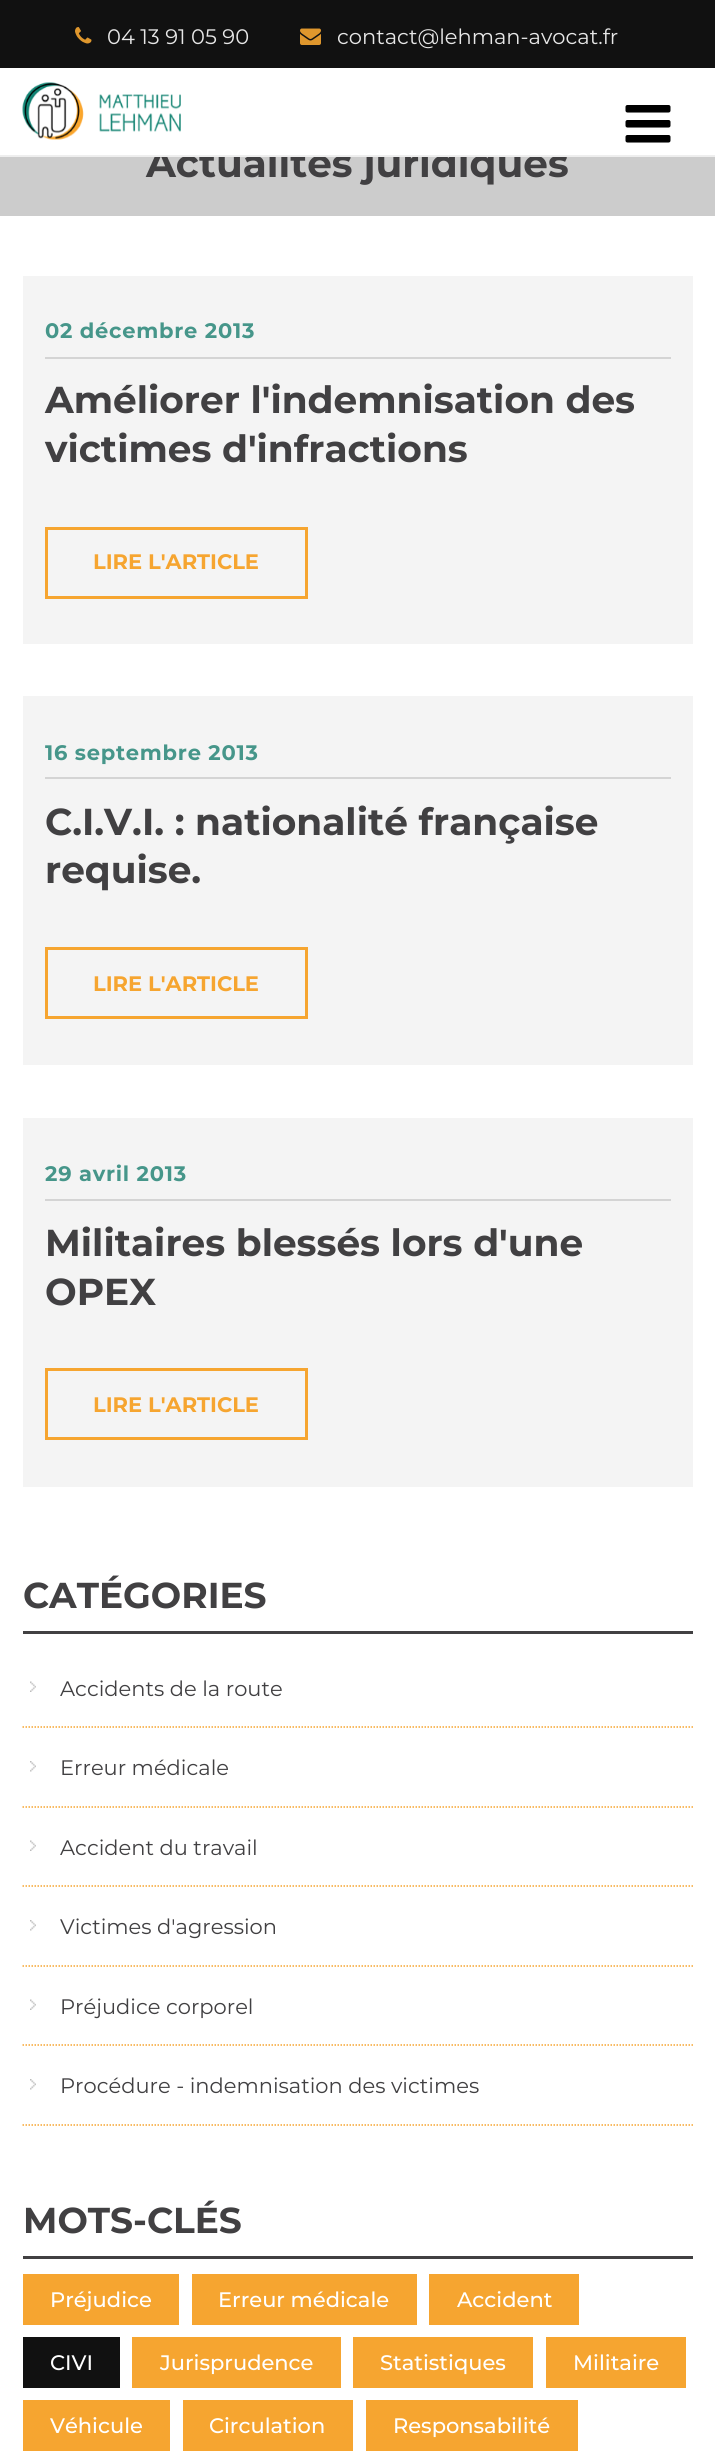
import math
import cairo

surface = cairo.ImageSurface(cairo.FORMAT_RGB24, 715, 2458)
ctx = cairo.Context(surface)
options = cairo.FontOptions()
options.set_hint_metrics(cairo.HINT_METRICS_OFF)
options.set_hint_style(cairo.HINT_STYLE_NONE)
ctx.set_font_options(options)
ctx.set_miter_limit(4)


def spaced_text(x, y, s, letter, word):
    ctx.move_to(x, y)
    for ch in s:
        ctx.show_text(ch)
        ctx.rel_move_to(letter + word * (ch == ' '), 0)


def picture(path, x, y, w, h):
    ctx.save()
    ctx.set_source_surface(cairo.ImageSurface.create_from_png(path), x, y)
    ctx.rectangle(x, y, w, h)
    ctx.fill()
    ctx.restore()


ctx.set_source_rgb(1, 1, 1)
ctx.paint()
ctx.set_source_rgb(0.067, 0.067, 0.067)
ctx.rectangle(0, 0, 715, 68)
ctx.fill()
picture("img1.png", 75, 27, 17, 17)
ctx.select_font_face("Montserrat")
ctx.set_font_size(21)
ctx.set_source_rgb(0.906, 0.906, 0.906)
ctx.move_to(107, 44)
ctx.show_text("04 13 91 05 90")
picture("img2.png", 300, 28, 21, 17)
ctx.move_to(337, 44)
ctx.show_text("contact@lehman-avocat.fr")
ctx.set_source_rgb(0.8, 0.8, 0.8)
ctx.rectangle(0, 157, 715, 59)
ctx.fill()
ctx.select_font_face("Montserrat", cairo.FONT_SLANT_NORMAL, cairo.FONT_WEIGHT_BOLD)
ctx.set_font_size(39)
ctx.set_source_rgb(0.255, 0.251, 0.259)
ctx.move_to(146, 177)
ctx.show_text("Actualités juridiques")
ctx.set_source_rgb(1, 1, 1)
ctx.rectangle(155, 146, 313, 9)
ctx.fill()
ctx.set_source_rgb(0.933, 0.933, 0.933)
ctx.rectangle(0, 155, 715, 2)
ctx.fill()
picture("img3.png", 22, 82, 159, 58)
picture("img4.png", 625, 105, 46, 38)
ctx.set_source_rgb(0.957, 0.957, 0.957)
ctx.rectangle(23, 276, 670, 368)
ctx.fill()
ctx.set_source_rgb(0.831, 0.831, 0.831)
ctx.rectangle(45, 357, 626, 2)
ctx.fill()
ctx.set_font_size(21)
ctx.set_source_rgb(0.275, 0.588, 0.541)
spaced_text(45, 338, "02 décembre 2013", 0.75, 0)
ctx.set_font_size(37.5)
ctx.set_source_rgb(0.255, 0.251, 0.259)
ctx.move_to(45, 413)
ctx.show_text("Améliorer l'indemnisation des")
ctx.move_to(45, 462)
ctx.show_text("victimes d'infractions")
ctx.rectangle(46.5, 528.5, 260, 69)
ctx.set_source_rgb(0.961, 0.647, 0.188)
ctx.set_line_width(3)
ctx.stroke()
ctx.set_font_size(21)
ctx.move_to(93, 569)
ctx.show_text("LIRE L'ARTICLE")
ctx.set_source_rgb(0.957, 0.957, 0.957)
ctx.rectangle(23, 696, 670, 369)
ctx.fill()
ctx.set_source_rgb(0.831, 0.831, 0.831)
ctx.rectangle(45, 777, 626, 2)
ctx.fill()
ctx.set_source_rgb(0.275, 0.588, 0.541)
spaced_text(45, 760, "16 septembre 2013", 0.75, 0)
ctx.set_font_size(37.5)
ctx.set_source_rgb(0.255, 0.251, 0.259)
ctx.move_to(45, 835)
ctx.show_text("C.I.V.I. : nationalité française")
ctx.move_to(45, 883)
ctx.show_text("requise.")
ctx.rectangle(46.5, 948.5, 260, 69)
ctx.set_source_rgb(0.961, 0.647, 0.188)
ctx.stroke()
ctx.set_font_size(21)
ctx.move_to(93, 991)
ctx.show_text("LIRE L'ARTICLE")
ctx.set_source_rgb(0.957, 0.957, 0.957)
ctx.rectangle(23, 1118, 670, 369)
ctx.fill()
ctx.set_source_rgb(0.831, 0.831, 0.831)
ctx.rectangle(45, 1199, 626, 2)
ctx.fill()
ctx.set_source_rgb(0.275, 0.588, 0.541)
spaced_text(45, 1181, "29 avril 2013", 0.75, 0)
ctx.set_font_size(37.5)
ctx.set_source_rgb(0.255, 0.251, 0.259)
ctx.move_to(45, 1256)
ctx.show_text("Militaires blessés lors d'une")
ctx.move_to(45, 1305)
ctx.show_text("OPEX")
ctx.rectangle(46.5, 1369.5, 260, 69)
ctx.set_source_rgb(0.961, 0.647, 0.188)
ctx.stroke()
ctx.set_font_size(21)
ctx.move_to(93, 1412)
ctx.show_text("LIRE L'ARTICLE")
ctx.set_source_rgb(0.255, 0.251, 0.259)
ctx.rectangle(23, 1631, 670, 3)
ctx.fill()
ctx.set_font_size(36)
ctx.move_to(23, 1608)
ctx.show_text("CATÉGORIES")
picture("img5.png", 30, 1681, 6, 11)
ctx.new_path()
ctx.move_to(22.5, 1727)
ctx.line_to(693, 1727)
ctx.set_source_rgb(0.961, 0.647, 0.188)
ctx.set_line_width(1.5)
ctx.set_dash([1.5, 1.5])
ctx.stroke()
ctx.select_font_face("Montserrat")
ctx.set_font_size(21)
ctx.set_source_rgb(0.255, 0.251, 0.259)
ctx.move_to(60, 1696)
ctx.show_text("Accidents de la route")
picture("img6.png", 30, 1761, 6, 11)
ctx.new_path()
ctx.move_to(22.5, 1807)
ctx.line_to(693, 1807)
ctx.set_source_rgb(0.961, 0.647, 0.188)
ctx.stroke()
ctx.set_source_rgb(0.255, 0.251, 0.259)
ctx.move_to(60, 1775)
ctx.show_text("Erreur médicale")
picture("img5.png", 30, 1840, 6, 11)
ctx.new_path()
ctx.move_to(22.5, 1886)
ctx.line_to(693, 1886)
ctx.set_source_rgb(0.961, 0.647, 0.188)
ctx.stroke()
ctx.set_source_rgb(0.255, 0.251, 0.259)
ctx.move_to(60, 1855)
ctx.show_text("Accident du travail")
picture("img6.png", 30, 1920, 6, 11)
ctx.new_path()
ctx.move_to(22.5, 1966)
ctx.line_to(693, 1966)
ctx.set_source_rgb(0.961, 0.647, 0.188)
ctx.stroke()
ctx.set_source_rgb(0.255, 0.251, 0.259)
ctx.move_to(60, 1934)
ctx.show_text("Victimes d'agression")
picture("img5.png", 30, 1999, 6, 11)
ctx.new_path()
ctx.move_to(22.5, 2045)
ctx.line_to(693, 2045)
ctx.set_source_rgb(0.961, 0.647, 0.188)
ctx.stroke()
ctx.set_source_rgb(0.255, 0.251, 0.259)
ctx.move_to(60, 2014)
ctx.show_text("Préjudice corporel")
picture("img6.png", 30, 2079, 6, 11)
ctx.new_path()
ctx.move_to(22.5, 2125)
ctx.line_to(693, 2125)
ctx.set_source_rgb(0.961, 0.647, 0.188)
ctx.stroke()
ctx.set_source_rgb(0.255, 0.251, 0.259)
ctx.move_to(60, 2093)
ctx.show_text("Procédure - indemnisation des victimes")
ctx.rectangle(23, 2256, 670, 3)
ctx.fill()
ctx.select_font_face("Montserrat", cairo.FONT_SLANT_NORMAL, cairo.FONT_WEIGHT_BOLD)
ctx.set_font_size(36)
ctx.move_to(23, 2233)
ctx.show_text("MOTS-CLÉS")
ctx.set_source_rgb(0.961, 0.647, 0.188)
ctx.rectangle(23, 2274, 156, 51)
ctx.fill()
ctx.select_font_face("Montserrat Medium")
ctx.set_font_size(21)
ctx.set_source_rgb(1, 1, 1)
ctx.move_to(50, 2307)
ctx.show_text("Préjudice")
ctx.set_source_rgb(0.961, 0.647, 0.188)
ctx.rectangle(192, 2274, 225, 51)
ctx.fill()
ctx.set_source_rgb(1, 1, 1)
ctx.move_to(218, 2307)
ctx.show_text("Erreur médicale")
ctx.set_source_rgb(0.961, 0.647, 0.188)
ctx.rectangle(429, 2274, 150, 51)
ctx.fill()
ctx.set_source_rgb(1, 1, 1)
ctx.move_to(457, 2307)
ctx.show_text("Accident")
ctx.set_source_rgb(0.067, 0.067, 0.067)
ctx.rectangle(23, 2337, 97, 51)
ctx.fill()
ctx.set_source_rgb(1, 1, 1)
ctx.move_to(50, 2370)
ctx.show_text("CIVI")
ctx.set_source_rgb(0.961, 0.647, 0.188)
ctx.rectangle(132, 2337, 209, 51)
ctx.fill()
ctx.set_source_rgb(1, 1, 1)
ctx.move_to(160, 2370)
ctx.show_text("Jurisprudence")
ctx.set_source_rgb(0.961, 0.647, 0.188)
ctx.rectangle(353, 2337, 180, 51)
ctx.fill()
ctx.set_source_rgb(1, 1, 1)
ctx.move_to(380, 2370)
ctx.show_text("Statistiques")
ctx.set_source_rgb(0.961, 0.647, 0.188)
ctx.rectangle(546, 2337, 140, 51)
ctx.fill()
ctx.set_source_rgb(1, 1, 1)
ctx.move_to(573, 2370)
ctx.show_text("Militaire")
ctx.set_source_rgb(0.961, 0.647, 0.188)
ctx.rectangle(23, 2400, 147, 51)
ctx.fill()
ctx.set_source_rgb(1, 1, 1)
ctx.move_to(50, 2433)
ctx.show_text("Véhicule")
ctx.set_source_rgb(0.961, 0.647, 0.188)
ctx.rectangle(183, 2400, 170, 51)
ctx.fill()
ctx.set_source_rgb(1, 1, 1)
ctx.move_to(209, 2433)
ctx.show_text("Circulation")
ctx.set_source_rgb(0.961, 0.647, 0.188)
ctx.rectangle(366, 2400, 212, 51)
ctx.fill()
ctx.set_source_rgb(1, 1, 1)
ctx.move_to(393, 2433)
ctx.show_text("Responsabilité")
surface.write_to_png("page.png")
